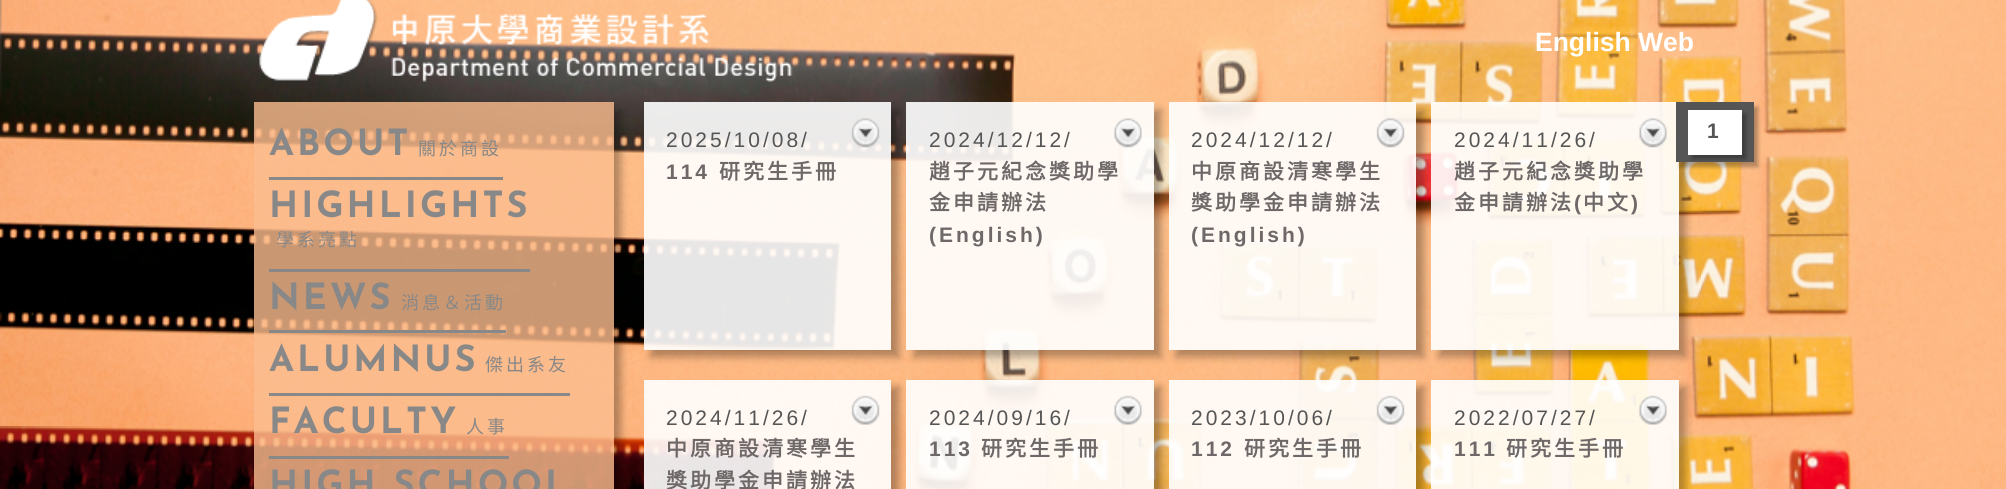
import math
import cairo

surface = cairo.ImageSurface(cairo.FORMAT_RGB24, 2006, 489)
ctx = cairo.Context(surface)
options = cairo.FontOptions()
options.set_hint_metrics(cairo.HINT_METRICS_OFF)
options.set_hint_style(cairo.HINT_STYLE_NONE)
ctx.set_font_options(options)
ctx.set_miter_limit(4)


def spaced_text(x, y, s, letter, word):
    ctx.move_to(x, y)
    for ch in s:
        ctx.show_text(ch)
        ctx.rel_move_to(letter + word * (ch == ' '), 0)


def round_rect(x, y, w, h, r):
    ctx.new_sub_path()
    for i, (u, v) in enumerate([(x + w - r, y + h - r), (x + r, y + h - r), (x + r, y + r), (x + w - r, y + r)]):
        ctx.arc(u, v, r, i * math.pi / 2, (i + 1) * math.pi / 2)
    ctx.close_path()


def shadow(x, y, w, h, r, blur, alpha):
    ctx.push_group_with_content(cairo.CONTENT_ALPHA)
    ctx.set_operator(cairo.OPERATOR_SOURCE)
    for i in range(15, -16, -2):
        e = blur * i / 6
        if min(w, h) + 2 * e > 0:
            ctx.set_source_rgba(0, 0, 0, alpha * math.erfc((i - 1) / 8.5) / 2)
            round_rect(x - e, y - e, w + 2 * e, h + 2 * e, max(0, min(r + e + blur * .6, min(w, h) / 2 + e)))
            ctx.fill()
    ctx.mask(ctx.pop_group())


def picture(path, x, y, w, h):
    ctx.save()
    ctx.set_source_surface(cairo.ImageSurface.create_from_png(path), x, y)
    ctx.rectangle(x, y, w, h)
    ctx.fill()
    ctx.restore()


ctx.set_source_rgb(1, 1, 1)
ctx.paint()
picture("img1.png", 0, 0, 2006, 489)
picture("img2.png", 259, 0, 534, 82)
ctx.select_font_face("Liberation Sans", cairo.FONT_SLANT_NORMAL, cairo.FONT_WEIGHT_BOLD)
ctx.set_font_size(26.5)
ctx.set_source_rgb(1, 1, 1)
ctx.move_to(1535, 51)
ctx.show_text("English Web")
ctx.save()
ctx.set_fill_rule(cairo.FILL_RULE_EVEN_ODD)
ctx.new_path()
ctx.move_to(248, 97)
ctx.line_to(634, 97)
ctx.line_to(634, 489)
ctx.line_to(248, 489)
ctx.close_path()
ctx.move_to(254, 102)
ctx.line_to(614, 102)
ctx.line_to(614, 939)
ctx.line_to(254, 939)
ctx.close_path()
ctx.clip()
ctx.set_source_rgb(0, 0, 0)
shadow(261, 110, 360, 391, 0, 4, 0.3)
ctx.restore()
ctx.set_source_rgba(0.984, 0.741, 0.557, 0.8)
ctx.rectangle(254, 102, 360, 387)
ctx.fill()
ctx.set_source_rgb(0.533, 0.533, 0.533)
ctx.rectangle(269, 177, 234, 3)
ctx.fill()
ctx.select_font_face("Josefin Sans Thin")
ctx.set_font_size(36)
spaced_text(269, 155, "ABOUT", 3, 0)
ctx.select_font_face("Noto Sans CJK TC")
ctx.set_font_size(18)
spaced_text(418, 155, "關於商設", 3, 0)
ctx.rectangle(269, 269, 261, 3)
ctx.fill()
ctx.select_font_face("Josefin Sans Thin")
ctx.set_font_size(36)
spaced_text(269, 217, "HIGHLIGHTS", 3, 0)
ctx.select_font_face("Noto Sans CJK TC")
ctx.set_font_size(18)
spaced_text(276, 246, "學系亮點", 3, 0)
ctx.rectangle(269, 330, 237, 3)
ctx.fill()
ctx.select_font_face("Josefin Sans Thin")
ctx.set_font_size(36)
spaced_text(269, 309, "NEWS", 3, 0)
ctx.select_font_face("Noto Sans CJK TC")
ctx.set_font_size(18)
spaced_text(401, 309, "消息＆活動", 3, 0)
ctx.rectangle(269, 393, 301, 3)
ctx.fill()
ctx.select_font_face("Josefin Sans Thin")
ctx.set_font_size(36)
spaced_text(269, 371, "ALUMNUS", 3, 0)
ctx.select_font_face("Noto Sans CJK TC")
ctx.set_font_size(18)
spaced_text(485, 371, "傑出系友", 3, 0)
ctx.rectangle(269, 456, 240, 3)
ctx.fill()
ctx.select_font_face("Josefin Sans Thin")
ctx.set_font_size(36)
spaced_text(269, 433, "FACULTY", 3, 0)
ctx.select_font_face("Noto Sans CJK TC")
ctx.set_font_size(18)
spaced_text(466, 433, "人事", 3, 0)
ctx.select_font_face("Josefin Sans Thin")
ctx.set_font_size(36)
spaced_text(269, 496, "HIGH SCHOOL", 3, 0)
ctx.save()
ctx.set_fill_rule(cairo.FILL_RULE_EVEN_ODD)
ctx.new_path()
ctx.move_to(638, 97)
ctx.line_to(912, 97)
ctx.line_to(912, 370)
ctx.line_to(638, 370)
ctx.close_path()
ctx.move_to(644, 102)
ctx.line_to(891, 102)
ctx.line_to(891, 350)
ctx.line_to(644, 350)
ctx.close_path()
ctx.clip()
ctx.set_source_rgb(0, 0, 0)
shadow(651, 110, 248, 247, 0, 4, 0.3)
ctx.restore()
ctx.set_source_rgba(1, 1, 1, 0.9)
ctx.rectangle(644, 102, 247, 248)
ctx.fill()
ctx.select_font_face("Liberation Sans")
ctx.set_font_size(21)
ctx.set_source_rgb(0.333, 0.333, 0.333)
spaced_text(666, 147, "2025/10/08/", 3, 0)
picture("img3.png", 851, 118, 29, 30)
ctx.select_font_face("Liberation Sans", cairo.FONT_SLANT_NORMAL, cairo.FONT_WEIGHT_BOLD)
ctx.set_source_rgb(0.431, 0.408, 0.412)
spaced_text(666, 179, "114", 3, 0)
ctx.select_font_face("Noto Sans CJK TC", cairo.FONT_SLANT_NORMAL, cairo.FONT_WEIGHT_BOLD)
spaced_text(719, 179, "研究生手冊", 3, 0)
ctx.save()
ctx.set_fill_rule(cairo.FILL_RULE_EVEN_ODD)
ctx.new_path()
ctx.move_to(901, 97)
ctx.line_to(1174, 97)
ctx.line_to(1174, 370)
ctx.line_to(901, 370)
ctx.close_path()
ctx.move_to(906, 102)
ctx.line_to(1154, 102)
ctx.line_to(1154, 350)
ctx.line_to(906, 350)
ctx.close_path()
ctx.clip()
ctx.set_source_rgb(0, 0, 0)
shadow(914, 110, 247, 247, 0, 4, 0.3)
ctx.restore()
ctx.set_source_rgba(1, 1, 1, 0.9)
ctx.rectangle(906, 102, 248, 248)
ctx.fill()
ctx.select_font_face("Liberation Sans")
ctx.set_source_rgb(0.333, 0.333, 0.333)
spaced_text(929, 147, "2024/12/12/", 3, 0)
picture("img4.png", 1114, 118, 28, 30)
ctx.select_font_face("Noto Sans CJK TC", cairo.FONT_SLANT_NORMAL, cairo.FONT_WEIGHT_BOLD)
ctx.set_source_rgb(0.431, 0.408, 0.412)
spaced_text(929, 179, "趙子元紀念獎助學", 3, 0)
spaced_text(929, 210, "金申請辦法", 3, 0)
ctx.select_font_face("Liberation Sans", cairo.FONT_SLANT_NORMAL, cairo.FONT_WEIGHT_BOLD)
spaced_text(929, 242, "(English)", 3, 0)
ctx.save()
ctx.set_fill_rule(cairo.FILL_RULE_EVEN_ODD)
ctx.new_path()
ctx.move_to(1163, 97)
ctx.line_to(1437, 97)
ctx.line_to(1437, 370)
ctx.line_to(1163, 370)
ctx.close_path()
ctx.move_to(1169, 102)
ctx.line_to(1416, 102)
ctx.line_to(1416, 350)
ctx.line_to(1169, 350)
ctx.close_path()
ctx.clip()
ctx.set_source_rgb(0, 0, 0)
shadow(1176, 110, 248, 247, 0, 4, 0.3)
ctx.restore()
ctx.set_source_rgba(1, 1, 1, 0.9)
ctx.rectangle(1169, 102, 247, 248)
ctx.fill()
ctx.select_font_face("Liberation Sans")
ctx.set_source_rgb(0.333, 0.333, 0.333)
spaced_text(1191, 147, "2024/12/12/", 3, 0)
picture("img5.png", 1376, 118, 29, 30)
ctx.select_font_face("Noto Sans CJK TC", cairo.FONT_SLANT_NORMAL, cairo.FONT_WEIGHT_BOLD)
ctx.set_source_rgb(0.431, 0.408, 0.412)
spaced_text(1191, 179, "中原商設清寒學生", 3, 0)
spaced_text(1191, 210, "獎助學金申請辦法", 3, 0)
ctx.select_font_face("Liberation Sans", cairo.FONT_SLANT_NORMAL, cairo.FONT_WEIGHT_BOLD)
spaced_text(1191, 242, "(English)", 3, 0)
ctx.save()
ctx.set_fill_rule(cairo.FILL_RULE_EVEN_ODD)
ctx.new_path()
ctx.move_to(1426, 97)
ctx.line_to(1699, 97)
ctx.line_to(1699, 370)
ctx.line_to(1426, 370)
ctx.close_path()
ctx.move_to(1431, 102)
ctx.line_to(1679, 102)
ctx.line_to(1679, 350)
ctx.line_to(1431, 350)
ctx.close_path()
ctx.clip()
ctx.set_source_rgb(0, 0, 0)
shadow(1439, 110, 247, 247, 0, 4, 0.3)
ctx.restore()
ctx.set_source_rgba(1, 1, 1, 0.9)
ctx.rectangle(1431, 102, 248, 248)
ctx.fill()
ctx.select_font_face("Liberation Sans")
ctx.set_source_rgb(0.333, 0.333, 0.333)
spaced_text(1454, 147, "2024/11/26/", 3, 0)
picture("img6.png", 1639, 118, 28, 30)
ctx.select_font_face("Noto Sans CJK TC", cairo.FONT_SLANT_NORMAL, cairo.FONT_WEIGHT_BOLD)
ctx.set_source_rgb(0.431, 0.408, 0.412)
spaced_text(1454, 179, "趙子元紀念獎助學", 3, 0)
spaced_text(1454, 210, "金申請辦法", 3, 0)
ctx.select_font_face("Liberation Sans", cairo.FONT_SLANT_NORMAL, cairo.FONT_WEIGHT_BOLD)
spaced_text(1574, 210, "(", 3, 0)
ctx.select_font_face("Noto Sans CJK TC", cairo.FONT_SLANT_NORMAL, cairo.FONT_WEIGHT_BOLD)
spaced_text(1583, 210, "中文", 3, 0)
ctx.select_font_face("Liberation Sans", cairo.FONT_SLANT_NORMAL, cairo.FONT_WEIGHT_BOLD)
spaced_text(1631, 210, ")", 3, 0)
ctx.set_source_rgb(0, 0, 0)
shadow(1680, 107, 78, 60, 0, 2, 0.3)
ctx.set_source_rgb(0.333, 0.333, 0.333)
ctx.rectangle(1676, 102, 78, 60)
ctx.fill()
ctx.set_source_rgb(0, 0, 0)
shadow(1692, 114, 54, 45, 0, 2, 0.3)
ctx.set_source_rgb(1, 1, 1)
ctx.rectangle(1688, 110, 54, 45)
ctx.fill()
ctx.set_source_rgb(0.333, 0.333, 0.333)
spaced_text(1707, 138, "1", 3, 0)
ctx.save()
ctx.rectangle(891, 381, 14, 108)
ctx.clip()
ctx.set_source_rgb(0, 0, 0)
shadow(651, 387, 248, 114, 0, 4, 0.3)
ctx.restore()
ctx.set_source_rgba(1, 1, 1, 0.9)
ctx.rectangle(644, 380, 247, 109)
ctx.fill()
ctx.select_font_face("Liberation Sans")
ctx.set_source_rgb(0.333, 0.333, 0.333)
spaced_text(666, 425, "2024/11/26/", 3, 0)
picture("img7.png", 851, 395, 29, 30)
ctx.select_font_face("Noto Sans CJK TC", cairo.FONT_SLANT_NORMAL, cairo.FONT_WEIGHT_BOLD)
ctx.set_source_rgb(0.431, 0.408, 0.412)
spaced_text(666, 456, "中原商設清寒學生", 3, 0)
spaced_text(666, 488, "獎助學金申請辦法", 3, 0)
ctx.save()
ctx.set_fill_rule(cairo.FILL_RULE_EVEN_ODD)
ctx.new_path()
ctx.move_to(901, 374)
ctx.line_to(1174, 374)
ctx.line_to(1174, 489)
ctx.line_to(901, 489)
ctx.close_path()
ctx.move_to(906, 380)
ctx.line_to(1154, 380)
ctx.line_to(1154, 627)
ctx.line_to(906, 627)
ctx.close_path()
ctx.clip()
ctx.set_source_rgb(0, 0, 0)
shadow(914, 387, 247, 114, 0, 4, 0.3)
ctx.restore()
ctx.set_source_rgba(1, 1, 1, 0.9)
ctx.rectangle(906, 380, 248, 109)
ctx.fill()
ctx.select_font_face("Liberation Sans")
ctx.set_source_rgb(0.333, 0.333, 0.333)
spaced_text(929, 425, "2024/09/16/", 3, 0)
picture("img8.png", 1114, 395, 28, 30)
ctx.select_font_face("Liberation Sans", cairo.FONT_SLANT_NORMAL, cairo.FONT_WEIGHT_BOLD)
ctx.set_source_rgb(0.431, 0.408, 0.412)
spaced_text(929, 456, "113", 3, 0)
ctx.select_font_face("Noto Sans CJK TC", cairo.FONT_SLANT_NORMAL, cairo.FONT_WEIGHT_BOLD)
spaced_text(981, 456, "研究生手冊", 3, 0)
ctx.save()
ctx.rectangle(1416, 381, 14, 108)
ctx.clip()
ctx.set_source_rgb(0, 0, 0)
shadow(1176, 387, 248, 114, 0, 4, 0.3)
ctx.restore()
ctx.set_source_rgba(1, 1, 1, 0.9)
ctx.rectangle(1169, 380, 247, 109)
ctx.fill()
ctx.select_font_face("Liberation Sans")
ctx.set_source_rgb(0.333, 0.333, 0.333)
spaced_text(1191, 425, "2023/10/06/", 3, 0)
picture("img9.png", 1376, 395, 29, 30)
ctx.select_font_face("Liberation Sans", cairo.FONT_SLANT_NORMAL, cairo.FONT_WEIGHT_BOLD)
ctx.set_source_rgb(0.431, 0.408, 0.412)
spaced_text(1191, 456, "112", 3, 0)
ctx.select_font_face("Noto Sans CJK TC", cairo.FONT_SLANT_NORMAL, cairo.FONT_WEIGHT_BOLD)
spaced_text(1244, 456, "研究生手冊", 3, 0)
ctx.save()
ctx.set_fill_rule(cairo.FILL_RULE_EVEN_ODD)
ctx.new_path()
ctx.move_to(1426, 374)
ctx.line_to(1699, 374)
ctx.line_to(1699, 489)
ctx.line_to(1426, 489)
ctx.close_path()
ctx.move_to(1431, 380)
ctx.line_to(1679, 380)
ctx.line_to(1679, 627)
ctx.line_to(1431, 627)
ctx.close_path()
ctx.clip()
ctx.set_source_rgb(0, 0, 0)
shadow(1439, 387, 247, 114, 0, 4, 0.3)
ctx.restore()
ctx.set_source_rgba(1, 1, 1, 0.9)
ctx.rectangle(1431, 380, 248, 109)
ctx.fill()
ctx.select_font_face("Liberation Sans")
ctx.set_source_rgb(0.333, 0.333, 0.333)
spaced_text(1454, 425, "2022/07/27/", 3, 0)
picture("img10.png", 1639, 395, 28, 30)
ctx.select_font_face("Liberation Sans", cairo.FONT_SLANT_NORMAL, cairo.FONT_WEIGHT_BOLD)
ctx.set_source_rgb(0.431, 0.408, 0.412)
spaced_text(1454, 456, "111", 3, 0)
ctx.select_font_face("Noto Sans CJK TC", cairo.FONT_SLANT_NORMAL, cairo.FONT_WEIGHT_BOLD)
spaced_text(1506, 456, "研究生手冊", 3, 0)
surface.write_to_png("page.png")
